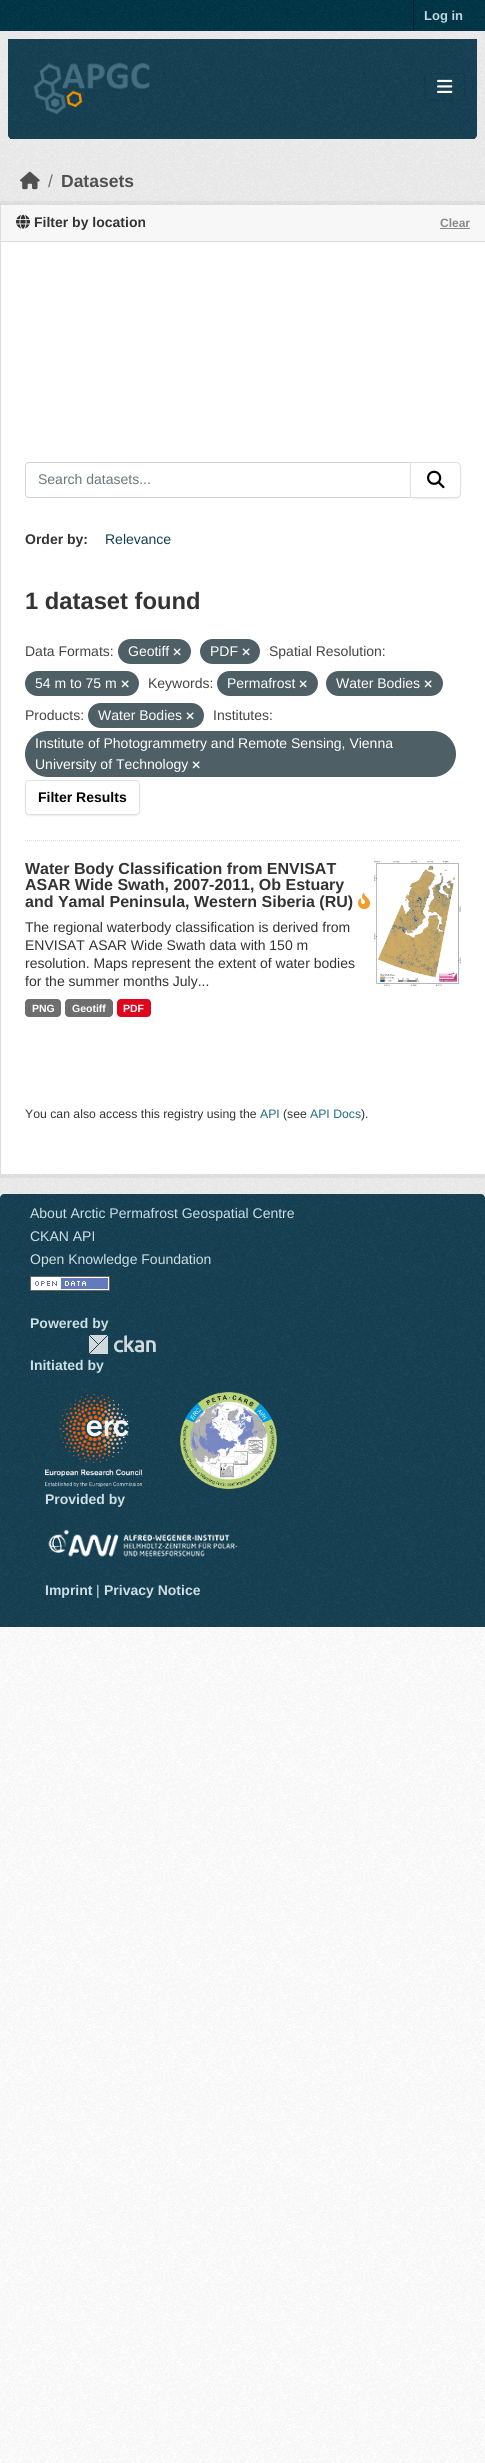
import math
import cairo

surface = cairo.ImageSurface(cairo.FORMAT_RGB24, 485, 2463)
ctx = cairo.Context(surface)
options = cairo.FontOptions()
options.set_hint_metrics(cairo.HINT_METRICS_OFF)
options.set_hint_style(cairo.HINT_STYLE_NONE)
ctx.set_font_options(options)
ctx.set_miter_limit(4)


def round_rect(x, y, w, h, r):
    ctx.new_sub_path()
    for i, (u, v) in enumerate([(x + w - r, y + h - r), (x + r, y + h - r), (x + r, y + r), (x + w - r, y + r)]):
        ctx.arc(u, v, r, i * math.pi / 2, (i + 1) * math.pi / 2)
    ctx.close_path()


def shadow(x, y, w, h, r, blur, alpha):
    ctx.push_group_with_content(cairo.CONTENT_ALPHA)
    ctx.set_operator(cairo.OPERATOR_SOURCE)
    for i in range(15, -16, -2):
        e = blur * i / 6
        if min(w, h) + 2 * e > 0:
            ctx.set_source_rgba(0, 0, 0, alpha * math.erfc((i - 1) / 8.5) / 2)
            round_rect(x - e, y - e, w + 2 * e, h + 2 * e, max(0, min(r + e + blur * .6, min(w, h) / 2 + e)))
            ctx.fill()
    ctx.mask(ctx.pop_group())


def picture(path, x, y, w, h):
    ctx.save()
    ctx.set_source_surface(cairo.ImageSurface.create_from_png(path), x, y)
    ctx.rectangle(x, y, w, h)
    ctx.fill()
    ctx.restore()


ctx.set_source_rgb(1, 1, 1)
ctx.paint()
picture("img1.png", 0, 1627, 485, 836)
ctx.set_source_rgb(0, 0.212, 0.278)
ctx.rectangle(0, 0, 485, 31)
ctx.fill()
picture("img2.png", 0, 0, 485, 31)
ctx.set_source_rgb(0, 0.137, 0.18)
ctx.rectangle(413, 0, 1, 31)
ctx.fill()
ctx.select_font_face("Liberation Sans", cairo.FONT_SLANT_NORMAL, cairo.FONT_WEIGHT_BOLD)
ctx.set_font_size(13)
ctx.set_source_rgb(0.749, 0.843, 0.871)
ctx.move_to(424, 20)
ctx.show_text("Log in")
ctx.set_source_rgb(0.933, 0.933, 0.933)
ctx.rectangle(0, 31, 485, 116)
ctx.fill()
picture("img3.png", 0, 31, 485, 116)
ctx.set_source_rgb(0.086, 0.255, 0.329)
ctx.new_path()
ctx.move_to(8, 39)
ctx.line_to(477, 39)
ctx.line_to(477, 135)
ctx.curve_to(477, 137, 475, 139, 473, 139)
ctx.line_to(12, 139)
ctx.curve_to(10, 139, 8, 137, 8, 135)
ctx.close_path()
ctx.fill()
picture("img4.png", 8, 39, 469, 99)
ctx.rectangle(10, 135, 465, 4)
ctx.fill()
picture("img5.png", 33, 63, 117, 52)
round_rect(424.5, 73.5, 40, 27, 3.5)
ctx.set_source_rgba(0, 0, 0, 0.1)
ctx.set_line_width(1)
ctx.stroke()
picture("img6.png", 437, 79, 16, 14)
ctx.set_source_rgb(0.933, 0.933, 0.933)
ctx.rectangle(0, 147, 485, 1051)
ctx.fill()
picture("img7.png", 0, 147, 485, 1047)
picture("img8.png", 20, 171, 20, 19)
ctx.select_font_face("Liberation Sans")
ctx.set_font_size(17.5)
ctx.set_source_rgb(0.424, 0.459, 0.49)
ctx.move_to(48, 187)
ctx.show_text("/")
ctx.select_font_face("Liberation Sans", cairo.FONT_SLANT_NORMAL, cairo.FONT_WEIGHT_BOLD)
ctx.set_source_rgb(0.314, 0.314, 0.314)
ctx.move_to(61, 187)
ctx.show_text("Datasets")
ctx.rectangle(-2, 203, 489, 973)
ctx.set_source_rgba(0, 0, 0, 0.05)
ctx.set_line_width(4)
ctx.stroke()
ctx.set_source_rgb(1, 1, 1)
ctx.rectangle(1, 205, 484, 969)
ctx.fill()
ctx.set_source_rgb(0.965, 0.965, 0.965)
ctx.new_path()
ctx.move_to(4, 205)
ctx.line_to(485, 205)
ctx.line_to(485, 242)
ctx.line_to(1, 242)
ctx.line_to(1, 208)
ctx.curve_to(1, 206.5, 2.5, 205, 4, 205)
ctx.close_path()
ctx.fill()
ctx.set_source_rgb(0.867, 0.867, 0.867)
ctx.rectangle(1, 241, 484, 1)
ctx.fill()
picture("img9.png", 16, 214, 14, 15)
ctx.set_font_size(14)
ctx.set_source_rgb(0.2, 0.2, 0.2)
ctx.move_to(34, 227)
ctx.show_text("Filter by location")
ctx.set_font_size(12)
ctx.set_source_rgb(0.533, 0.533, 0.533)
ctx.move_to(440, 227)
ctx.show_text("Clear")
ctx.rectangle(440, 228, 30, 1)
ctx.fill()
ctx.set_source_rgb(0.867, 0.867, 0.867)
ctx.rectangle(0, 205, 1, 969)
ctx.fill()
ctx.new_path()
ctx.move_to(25, 840.5)
ctx.line_to(461, 840.5)
ctx.set_line_width(1)
ctx.set_dash([1, 1])
ctx.stroke()
ctx.new_path()
ctx.move_to(29, 462.5)
ctx.line_to(410.5, 462.5)
ctx.line_to(410.5, 497.5)
ctx.line_to(29, 497.5)
ctx.curve_to(27, 497.5, 25.5, 496, 25.5, 494)
ctx.line_to(25.5, 466)
ctx.curve_to(25.5, 464, 27, 462.5, 29, 462.5)
ctx.close_path()
ctx.set_source_rgb(0.808, 0.831, 0.855)
ctx.set_dash([])
ctx.stroke()
ctx.select_font_face("Liberation Sans")
ctx.set_font_size(14)
ctx.set_source_rgb(0.424, 0.459, 0.49)
ctx.move_to(38, 484)
ctx.show_text("Search datasets...")
ctx.set_source_rgb(0, 0, 0)
shadow(410, 463, 51, 36, 5, 0.5, 0.07)
ctx.set_source_rgb(1, 1, 1)
ctx.new_path()
ctx.move_to(410.5, 462.5)
ctx.line_to(456, 462.5)
ctx.curve_to(458.5, 462.5, 460.5, 464.5, 460.5, 467)
ctx.line_to(460.5, 493)
ctx.curve_to(460.5, 495.5, 458.5, 497.5, 456, 497.5)
ctx.line_to(410.5, 497.5)
ctx.close_path()
ctx.fill_preserve()
ctx.set_source_rgb(0.871, 0.886, 0.902)
ctx.stroke()
picture("img10.png", 427, 470, 18, 19)
ctx.select_font_face("Liberation Sans", cairo.FONT_SLANT_NORMAL, cairo.FONT_WEIGHT_BOLD)
ctx.set_source_rgb(0.2, 0.2, 0.2)
ctx.move_to(25, 544)
ctx.show_text("Order by:")
ctx.select_font_face("Liberation Sans")
ctx.set_source_rgb(0.082, 0.247, 0.318)
ctx.move_to(105, 544)
ctx.show_text("Relevance")
ctx.select_font_face("Liberation Sans", cairo.FONT_SLANT_NORMAL, cairo.FONT_WEIGHT_BOLD)
ctx.set_font_size(23.75)
ctx.set_source_rgb(0.2, 0.2, 0.2)
ctx.move_to(25, 609)
ctx.show_text("1 dataset found")
ctx.select_font_face("Liberation Sans")
ctx.set_font_size(14)
ctx.set_source_rgb(0.267, 0.267, 0.267)
ctx.move_to(25, 656)
ctx.show_text("Data Formats:")
ctx.set_source_rgb(0.306, 0.373, 0.396)
round_rect(118, 639, 73, 25, 12.5)
ctx.fill()
ctx.set_source_rgb(1, 1, 1)
ctx.move_to(128, 656)
ctx.show_text("Geotiff")
picture("img11.png", 173, 648, 8, 8)
ctx.set_source_rgb(0.306, 0.373, 0.396)
round_rect(200, 639, 60, 25, 12.5)
ctx.fill()
ctx.set_source_rgb(1, 1, 1)
ctx.move_to(210, 656)
ctx.show_text("PDF")
picture("img11.png", 242, 648, 8, 8)
ctx.set_source_rgb(0.267, 0.267, 0.267)
ctx.move_to(269, 656)
ctx.show_text("Spatial Resolution:")
ctx.set_source_rgb(0.306, 0.373, 0.396)
round_rect(25, 671, 114, 25, 12.5)
ctx.fill()
ctx.set_source_rgb(1, 1, 1)
ctx.move_to(35, 688)
ctx.show_text("54 m to 75 m")
picture("img11.png", 121, 680, 8, 8)
ctx.set_source_rgb(0.267, 0.267, 0.267)
ctx.move_to(148, 688)
ctx.show_text("Keywords:")
ctx.set_source_rgb(0.306, 0.373, 0.396)
round_rect(217, 671, 101, 25, 12.5)
ctx.fill()
ctx.set_source_rgb(1, 1, 1)
ctx.move_to(227, 688)
ctx.show_text("Permafrost")
picture("img11.png", 299, 680, 8, 8)
ctx.set_source_rgb(0.306, 0.373, 0.396)
round_rect(326, 671, 117, 25, 12.5)
ctx.fill()
ctx.set_source_rgb(1, 1, 1)
ctx.move_to(336, 688)
ctx.show_text("Water Bodies")
picture("img11.png", 424, 680, 8, 8)
ctx.set_source_rgb(0.267, 0.267, 0.267)
ctx.move_to(25, 720)
ctx.show_text("Products:")
ctx.set_source_rgb(0.306, 0.373, 0.396)
round_rect(88, 703, 116, 25, 12.5)
ctx.fill()
ctx.set_source_rgb(1, 1, 1)
ctx.move_to(98, 720)
ctx.show_text("Water Bodies")
picture("img11.png", 186, 712, 8, 8)
ctx.set_source_rgb(0.267, 0.267, 0.267)
ctx.move_to(213, 720)
ctx.show_text("Institutes:")
ctx.set_source_rgb(0.306, 0.373, 0.396)
round_rect(25, 731, 431, 46, 23)
ctx.fill()
ctx.set_source_rgb(1, 1, 1)
ctx.move_to(35, 748)
ctx.show_text("Institute of Photogrammetry and Remote Sensing, Vienna")
ctx.move_to(35, 769)
ctx.show_text("University of Technology")
picture("img11.png", 192, 761, 8, 8)
ctx.set_source_rgb(0, 0, 0)
shadow(25, 781, 115, 35, 4, 0.5, 0.07)
ctx.set_source_rgb(1, 1, 1)
round_rect(25.5, 780.5, 114, 34, 3.5)
ctx.fill_preserve()
ctx.set_source_rgb(0.871, 0.886, 0.902)
ctx.stroke()
ctx.select_font_face("Liberation Sans", cairo.FONT_SLANT_NORMAL, cairo.FONT_WEIGHT_BOLD)
ctx.set_source_rgb(0, 0, 0)
ctx.move_to(38, 802)
ctx.show_text("Filter Results")
ctx.set_font_size(16)
ctx.set_source_rgb(0.2, 0.2, 0.2)
ctx.move_to(25, 874)
ctx.show_text("Water Body Classification from ENVISAT")
ctx.move_to(25, 890)
ctx.show_text("ASAR Wide Swath, 2007-2011, Ob Estuary")
ctx.move_to(25, 907)
ctx.show_text("and Yamal Peninsula, Western Siberia (RU)")
picture("img12.png", 358, 893, 12, 16)
ctx.select_font_face("Liberation Sans")
ctx.set_font_size(14)
ctx.move_to(25, 932)
ctx.show_text("The regional waterbody classification is derived from")
ctx.move_to(25, 950)
ctx.show_text("ENVISAT ASAR Wide Swath data with 150 m")
ctx.move_to(25, 968)
ctx.show_text("resolution. Maps represent the extent of water bodies")
ctx.move_to(25, 986)
ctx.show_text("for the summer months July...")
picture("img13.png", 374, 861, 87, 125)
ctx.set_source_rgb(0.431, 0.431, 0.431)
round_rect(25, 999, 36, 18, 4)
ctx.fill()
ctx.select_font_face("Liberation Sans", cairo.FONT_SLANT_NORMAL, cairo.FONT_WEIGHT_BOLD)
ctx.set_font_size(10.5)
ctx.set_source_rgb(1, 1, 1)
ctx.move_to(32, 1012)
ctx.show_text("PNG")
ctx.set_source_rgb(0.431, 0.431, 0.431)
round_rect(65, 999, 48, 18, 4)
ctx.fill()
ctx.set_source_rgb(1, 1, 1)
ctx.move_to(72, 1012)
ctx.show_text("Geotiff")
ctx.set_source_rgb(0.878, 0.02, 0.118)
round_rect(117, 999, 34, 18, 4)
ctx.fill()
ctx.set_source_rgb(1, 1, 1)
ctx.move_to(123, 1012)
ctx.show_text("PDF")
ctx.select_font_face("Liberation Sans")
ctx.set_font_size(12.25)
ctx.set_source_rgb(0.2, 0.2, 0.2)
ctx.move_to(25, 1118)
ctx.show_text("You can also access this registry using the")
ctx.set_source_rgb(0.125, 0.42, 0.51)
ctx.move_to(260, 1118)
ctx.show_text("API")
ctx.set_source_rgb(0.2, 0.2, 0.2)
ctx.move_to(283, 1118)
ctx.show_text("(see")
ctx.set_source_rgb(0.125, 0.42, 0.51)
ctx.move_to(310, 1118)
ctx.show_text("API Docs")
ctx.set_source_rgb(0.2, 0.2, 0.2)
ctx.move_to(361, 1118)
ctx.show_text(").")
picture("img14.png", 0, 1194, 485, 4)
ctx.set_source_rgb(0.086, 0.255, 0.329)
ctx.new_path()
ctx.move_to(4, 1194)
ctx.line_to(481, 1194)
ctx.curve_to(483, 1194, 485, 1196, 485, 1198)
ctx.line_to(485, 1627)
ctx.line_to(0, 1627)
ctx.line_to(0, 1198)
ctx.curve_to(0, 1196, 2, 1194, 4, 1194)
ctx.close_path()
ctx.fill()
picture("img15.png", 0, 1194, 485, 433)
ctx.set_font_size(14)
ctx.set_source_rgb(0.8, 0.871, 0.89)
ctx.move_to(30, 1218)
ctx.show_text("About Arctic Permafrost Geospatial Centre")
ctx.move_to(30, 1241)
ctx.show_text("CKAN API")
ctx.move_to(30, 1264)
ctx.show_text("Open Knowledge Foundation")
picture("img16.png", 30, 1276, 80, 15)
ctx.select_font_face("Liberation Sans", cairo.FONT_SLANT_NORMAL, cairo.FONT_WEIGHT_BOLD)
ctx.move_to(30, 1328)
ctx.show_text("Powered by")
picture("img17.png", 89, 1335, 67, 19)
ctx.move_to(30, 1370)
ctx.show_text("Initiated by")
picture("img18.png", 45, 1394, 97, 93)
picture("img19.png", 180, 1392, 97, 97)
ctx.move_to(45, 1504)
ctx.show_text("Provided by")
picture("img20.png", 48, 1529, 190, 28)
ctx.move_to(45, 1595)
ctx.show_text("Imprint")
ctx.select_font_face("Liberation Sans")
ctx.move_to(96, 1595)
ctx.show_text("|")
ctx.select_font_face("Liberation Sans", cairo.FONT_SLANT_NORMAL, cairo.FONT_WEIGHT_BOLD)
ctx.move_to(104, 1595)
ctx.show_text("Privacy Notice")
surface.write_to_png("page.png")
